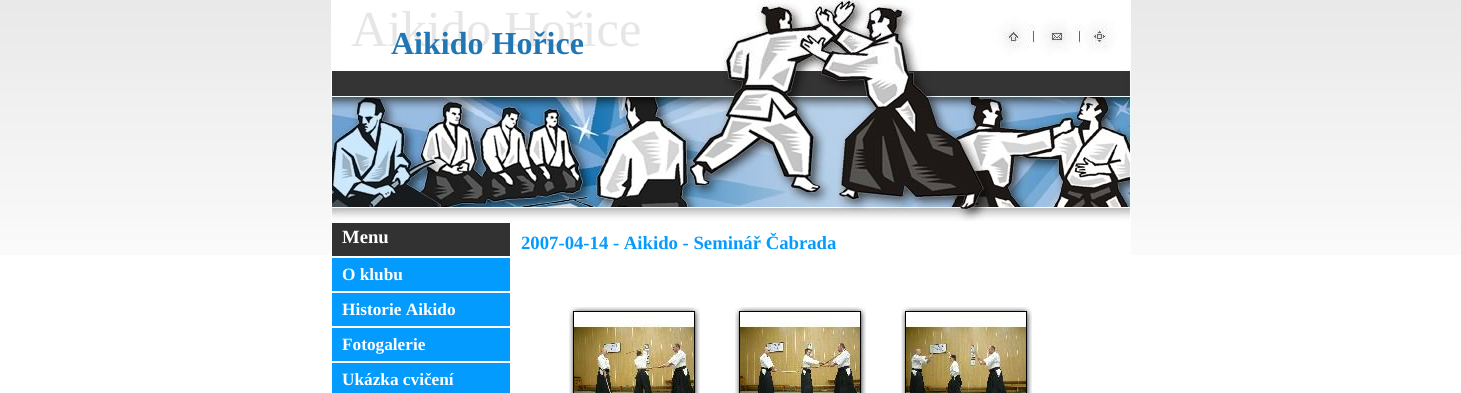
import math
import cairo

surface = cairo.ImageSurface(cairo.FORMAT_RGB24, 1461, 393)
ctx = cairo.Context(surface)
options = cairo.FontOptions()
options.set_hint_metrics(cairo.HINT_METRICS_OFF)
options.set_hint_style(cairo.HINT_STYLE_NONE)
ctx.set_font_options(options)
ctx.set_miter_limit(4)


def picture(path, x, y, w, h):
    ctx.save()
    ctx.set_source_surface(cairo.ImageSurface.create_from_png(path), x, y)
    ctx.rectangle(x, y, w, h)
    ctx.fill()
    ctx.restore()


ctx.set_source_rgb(1, 1, 1)
ctx.paint()
picture("img1.png", 0, 0, 1461, 255)
picture("img2.png", 331, 0, 800, 71)
ctx.select_font_face("Liberation Serif")
ctx.set_font_size(50.5)
ctx.set_source_rgb(0.902, 0.902, 0.902)
ctx.move_to(351, 46)
ctx.show_text("Aikido Hořice")
ctx.select_font_face("Liberation Serif", cairo.FONT_SLANT_NORMAL, cairo.FONT_WEIGHT_BOLD)
ctx.set_font_size(32)
ctx.set_source_rgb(0.129, 0.467, 0.706)
ctx.move_to(391, 54)
ctx.show_text("Aikido Hořice")
picture("img3.png", 331, 71, 800, 25)
picture("img4.png", 331, 96, 800, 111)
picture("img5.png", 331, 207, 800, 15)
ctx.set_source_rgb(1, 1, 1)
ctx.rectangle(511, 222, 620, 33)
ctx.fill()
ctx.set_source_rgb(0.196, 0.196, 0.196)
ctx.rectangle(331.5, 222.5, 179, 34)
ctx.fill_preserve()
ctx.set_source_rgb(1, 1, 1)
ctx.set_line_width(1)
ctx.stroke()
ctx.set_font_size(18.7)
ctx.move_to(342, 243)
ctx.show_text("Menu")
ctx.set_source_rgb(0.016, 0.608, 1)
ctx.rectangle(332, 258, 178, 33)
ctx.fill()
ctx.set_font_size(17.25)
ctx.set_source_rgb(1, 1, 1)
ctx.move_to(342, 280)
ctx.show_text("O klubu")
ctx.set_source_rgb(0.016, 0.608, 1)
ctx.rectangle(332, 293, 178, 33)
ctx.fill()
ctx.set_source_rgb(1, 1, 1)
ctx.move_to(342, 315)
ctx.show_text("Historie Aikido")
ctx.set_source_rgb(0.016, 0.608, 1)
ctx.rectangle(332, 328, 178, 33)
ctx.fill()
ctx.set_source_rgb(1, 1, 1)
ctx.move_to(342, 350)
ctx.show_text("Fotogalerie")
ctx.set_source_rgb(0.016, 0.608, 1)
ctx.rectangle(332, 363, 178, 30)
ctx.fill()
ctx.set_source_rgb(1, 1, 1)
ctx.move_to(342, 385)
ctx.show_text("Ukázka cvičení")
ctx.set_font_size(18.7)
ctx.set_source_rgb(0.016, 0.608, 1)
ctx.move_to(521, 249)
ctx.show_text("2007-04-14 - Aikido - Seminář Čabrada")
picture("img6.png", 569, 307, 131, 86)
ctx.rectangle(573.5, 311.5, 121, 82)
ctx.set_source_rgb(0, 0, 0)
ctx.stroke()
picture("img7.png", 574, 312, 120, 81)
picture("img6.png", 735, 307, 131, 86)
ctx.rectangle(739.5, 311.5, 121, 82)
ctx.stroke()
picture("img8.png", 740, 312, 120, 81)
picture("img6.png", 901, 307, 131, 86)
ctx.rectangle(905.5, 311.5, 121, 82)
ctx.stroke()
picture("img9.png", 906, 312, 120, 81)
surface.write_to_png("page.png")
